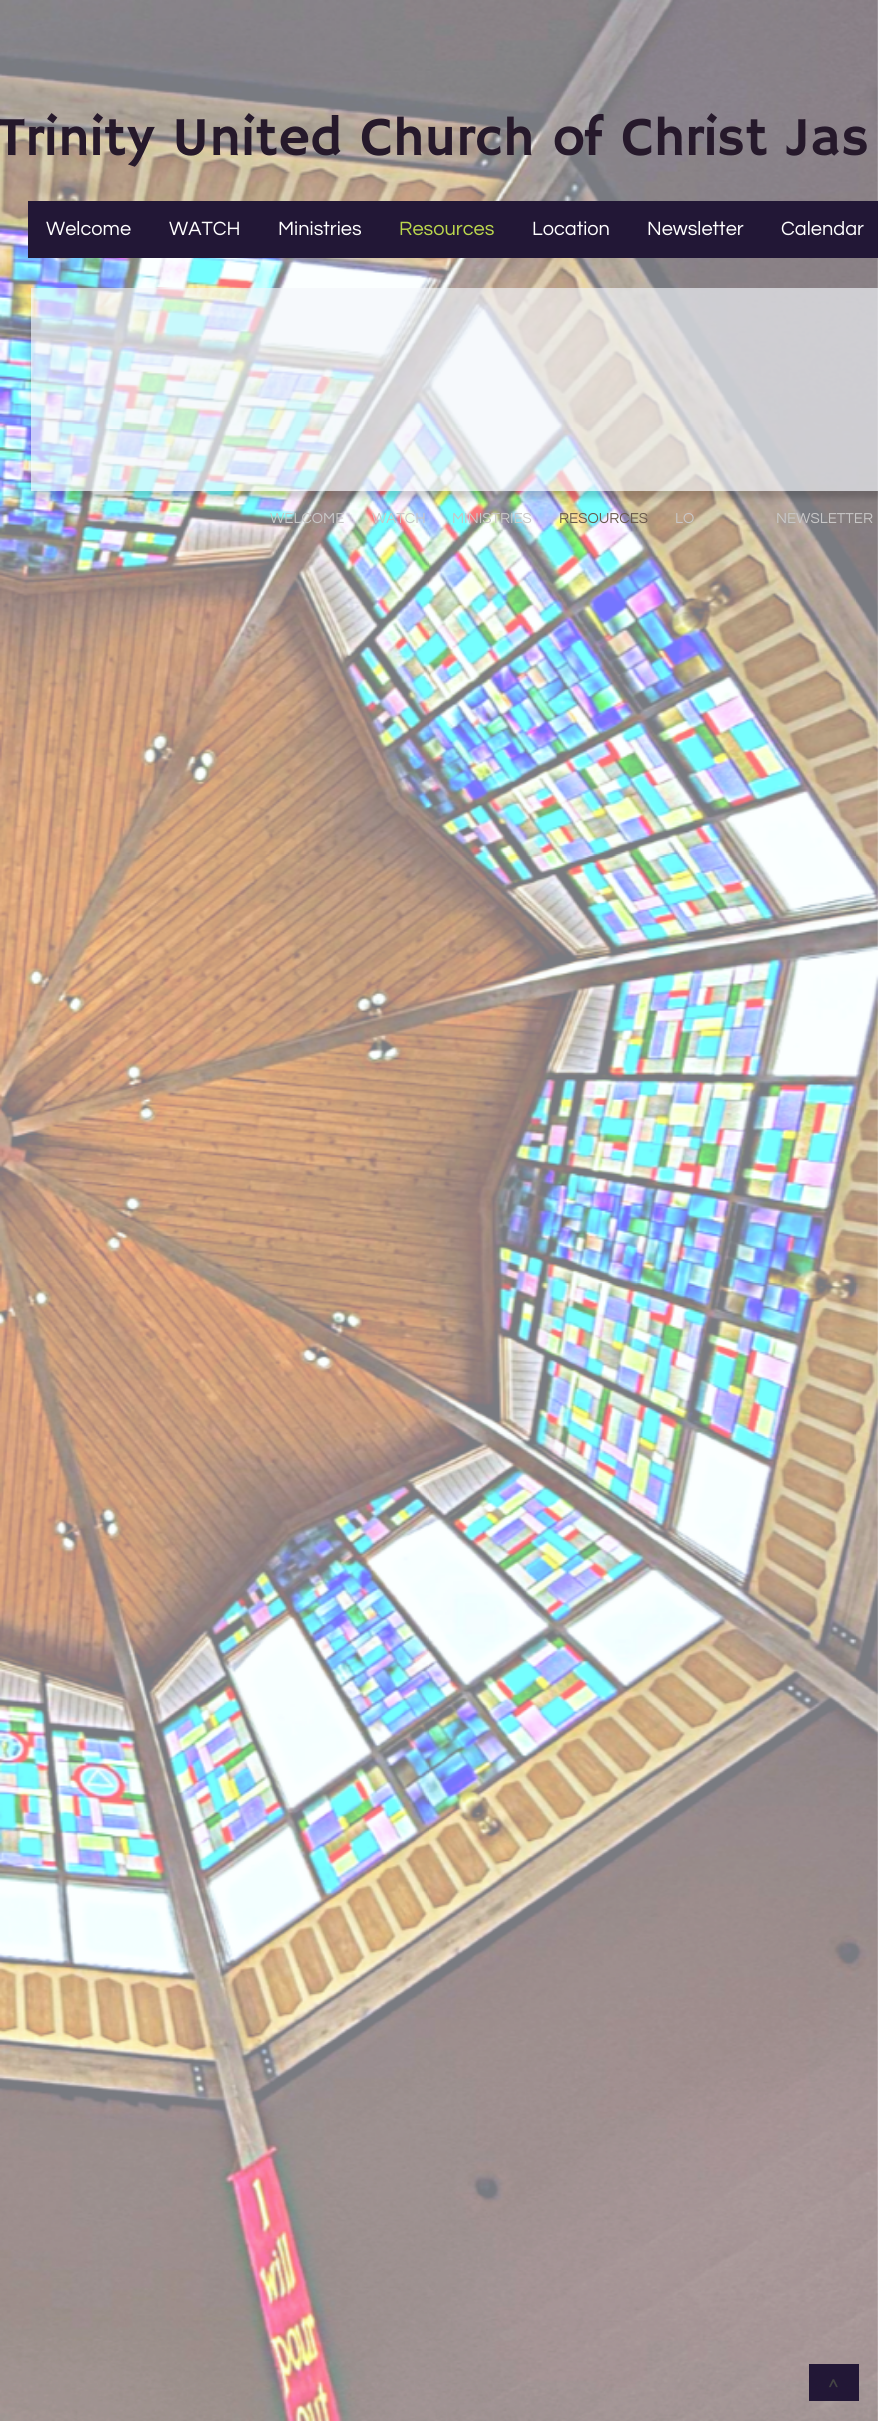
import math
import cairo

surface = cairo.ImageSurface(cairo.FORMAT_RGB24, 878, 2421)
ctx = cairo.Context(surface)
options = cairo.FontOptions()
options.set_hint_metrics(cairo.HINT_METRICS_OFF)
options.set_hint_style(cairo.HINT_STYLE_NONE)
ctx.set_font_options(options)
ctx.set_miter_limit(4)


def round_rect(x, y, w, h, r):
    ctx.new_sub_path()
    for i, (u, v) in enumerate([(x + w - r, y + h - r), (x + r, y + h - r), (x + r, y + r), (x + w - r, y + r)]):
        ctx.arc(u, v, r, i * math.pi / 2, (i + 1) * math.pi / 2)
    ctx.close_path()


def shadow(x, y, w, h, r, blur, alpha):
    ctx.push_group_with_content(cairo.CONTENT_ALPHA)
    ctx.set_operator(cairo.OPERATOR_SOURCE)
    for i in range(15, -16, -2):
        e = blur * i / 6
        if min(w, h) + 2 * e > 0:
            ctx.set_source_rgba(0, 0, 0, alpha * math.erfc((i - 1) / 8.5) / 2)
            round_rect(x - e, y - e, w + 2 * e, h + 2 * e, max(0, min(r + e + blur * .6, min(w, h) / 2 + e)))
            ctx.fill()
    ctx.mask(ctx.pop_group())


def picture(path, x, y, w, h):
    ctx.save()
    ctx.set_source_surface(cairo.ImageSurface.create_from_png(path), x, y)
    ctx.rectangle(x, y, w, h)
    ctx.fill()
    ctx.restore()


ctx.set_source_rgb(1, 1, 1)
ctx.paint()
picture("img1.png", 0, 0, 878, 2421)
ctx.select_font_face("Hammersmith One")
ctx.set_font_size(55)
ctx.set_source_rgb(0.149, 0.098, 0.169)
ctx.move_to(-2, 155)
ctx.show_text("Trinity United Church of Christ Jas")
ctx.set_source_rgb(0.133, 0.09, 0.212)
ctx.rectangle(28, 201, 850, 57)
ctx.fill()
ctx.select_font_face("Questrial")
ctx.set_font_size(20)
ctx.set_source_rgb(1, 1, 1)
ctx.move_to(46, 235)
ctx.show_text("Welcome")
ctx.move_to(169, 235)
ctx.show_text("WATCH")
ctx.move_to(278, 235)
ctx.show_text("Ministries")
ctx.set_source_rgb(0.733, 0.843, 0.298)
ctx.move_to(399, 235)
ctx.show_text("Resources")
ctx.set_source_rgb(1, 1, 1)
ctx.move_to(532, 235)
ctx.show_text("Location")
ctx.move_to(647, 235)
ctx.show_text("Newsletter")
ctx.move_to(781, 235)
ctx.show_text("Calendar")
ctx.save()
ctx.set_fill_rule(cairo.FILL_RULE_EVEN_ODD)
ctx.new_path()
ctx.move_to(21, 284)
ctx.line_to(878, 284)
ctx.line_to(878, 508)
ctx.line_to(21, 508)
ctx.close_path()
ctx.move_to(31, 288)
ctx.line_to(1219, 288)
ctx.line_to(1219, 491)
ctx.line_to(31, 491)
ctx.close_path()
ctx.clip()
ctx.set_source_rgb(0, 0, 0)
shadow(31, 294, 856, 204, 0, 3, 0.18)
ctx.restore()
ctx.set_source_rgba(0.949, 0.961, 0.98, 0.66)
ctx.rectangle(31, 288, 847, 203)
ctx.fill()
ctx.set_font_size(15)
ctx.set_source_rgb(0.784, 0.78, 0.78)
ctx.move_to(270, 523)
ctx.show_text("WELCOME")
ctx.move_to(372, 523)
ctx.show_text("WATCH")
ctx.move_to(452, 523)
ctx.show_text("MINISTRIES")
ctx.set_source_rgb(0.408, 0.345, 0.298)
ctx.move_to(559, 523)
ctx.show_text("RESOURCES")
ctx.set_source_rgb(0.784, 0.78, 0.78)
ctx.move_to(675, 523)
ctx.show_text("LO")
ctx.move_to(776, 523)
ctx.show_text("NEWSLETTER")
ctx.set_source_rgb(0.133, 0.09, 0.212)
ctx.rectangle(809, 2364, 50, 37)
ctx.fill()
ctx.set_font_size(25)
ctx.set_source_rgb(0.267, 0.267, 0.267)
ctx.move_to(827, 2396)
ctx.show_text("^")
surface.write_to_png("page.png")
